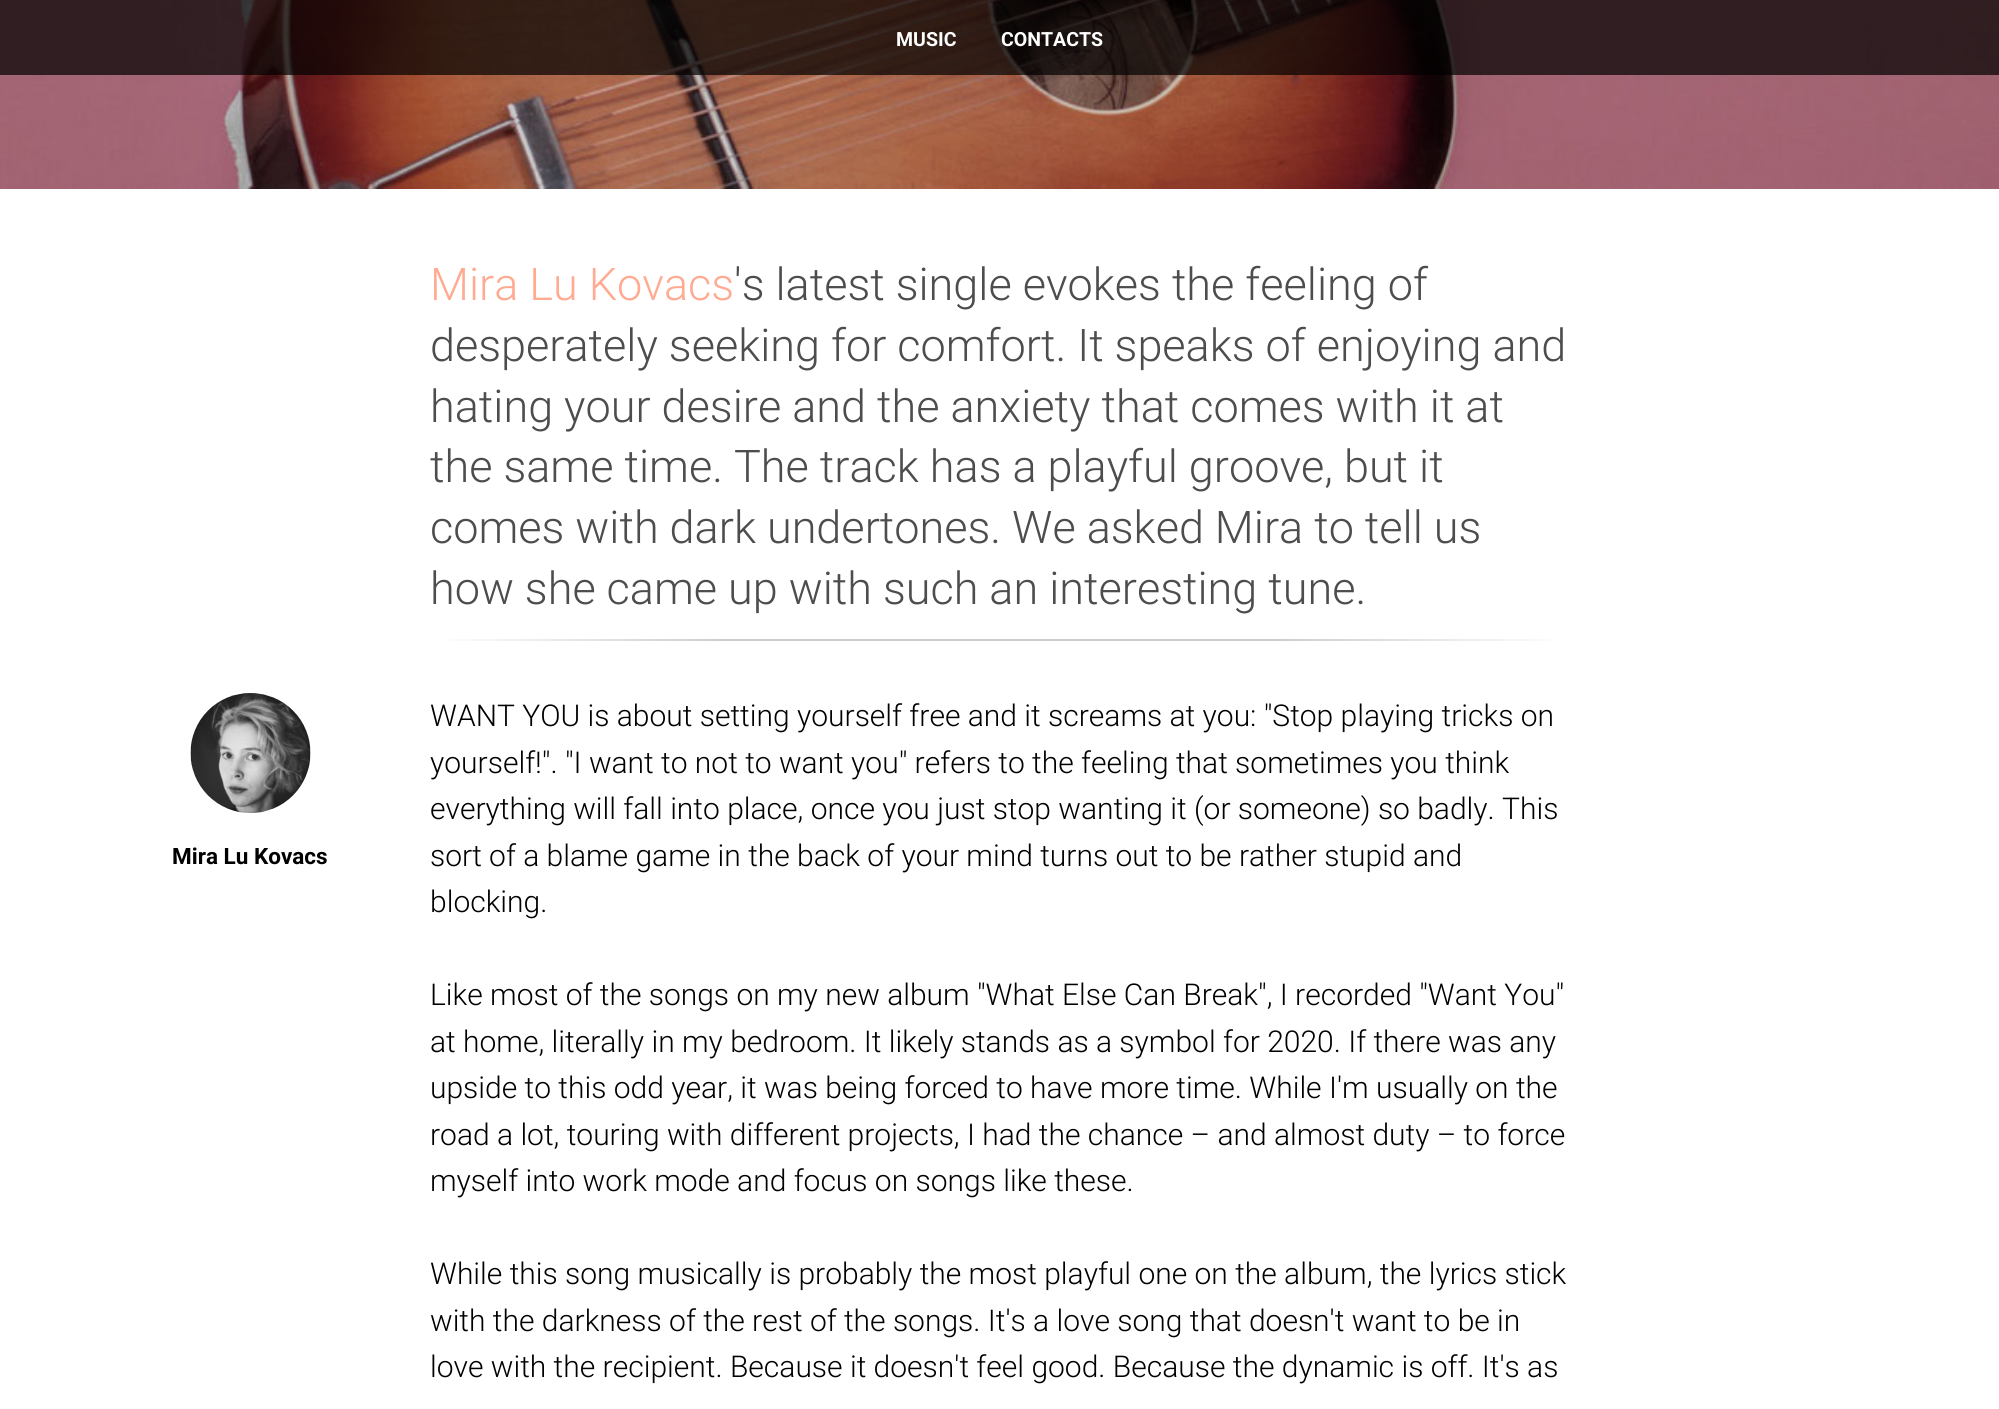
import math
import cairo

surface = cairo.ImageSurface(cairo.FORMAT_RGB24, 1999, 1409)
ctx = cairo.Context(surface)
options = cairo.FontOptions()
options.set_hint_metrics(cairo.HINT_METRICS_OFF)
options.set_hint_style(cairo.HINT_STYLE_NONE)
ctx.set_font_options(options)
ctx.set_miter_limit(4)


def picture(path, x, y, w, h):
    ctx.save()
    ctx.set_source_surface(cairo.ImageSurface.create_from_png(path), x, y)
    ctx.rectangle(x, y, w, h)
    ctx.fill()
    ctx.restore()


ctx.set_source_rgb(1, 1, 1)
ctx.paint()
picture("img1.png", 0, 0, 1999, 189)
ctx.set_source_rgba(0, 0, 0, 0.7)
ctx.rectangle(0, 0, 1999, 75)
ctx.fill()
ctx.select_font_face("Roboto", cairo.FONT_SLANT_NORMAL, cairo.FONT_WEIGHT_BOLD)
ctx.set_font_size(19.5)
ctx.set_source_rgb(1, 1, 1)
ctx.move_to(896, 46)
ctx.show_text("MUSIC")
ctx.move_to(1001, 46)
ctx.show_text("CONTACTS")
ctx.select_font_face("Roboto Light")
ctx.set_font_size(45)
ctx.set_source_rgb(1, 0.667, 0.569)
ctx.move_to(430, 300)
ctx.show_text("Mira Lu Kovacs")
ctx.set_source_rgb(0.302, 0.302, 0.302)
ctx.move_to(734, 300)
ctx.show_text("'s latest single evokes the feeling of")
ctx.move_to(430, 361)
ctx.show_text("desperately seeking for comfort. It speaks of enjoying and")
ctx.move_to(430, 422)
ctx.show_text("hating your desire and the anxiety that comes with it at")
ctx.move_to(430, 482)
ctx.show_text("the same time. The track has a playful groove, but it")
ctx.move_to(430, 543)
ctx.show_text("comes with dark undertones. We asked Mira to tell us")
ctx.move_to(430, 604)
ctx.show_text("how she came up with such an interesting tune.")
gradient = cairo.LinearGradient(731, 640, 431, 640)
gradient.add_color_stop_rgba(0, 0.8, 0.8, 0.8, 1)
gradient.add_color_stop_rgba(1, 1, 1, 1, 1)
ctx.set_source(gradient)
ctx.rectangle(446, 639, 285, 2)
ctx.fill()
ctx.set_source_rgb(0.8, 0.8, 0.8)
ctx.rectangle(731, 639, 540, 2)
ctx.fill()
gradient = cairo.LinearGradient(1271, 640, 1571, 640)
gradient.add_color_stop_rgba(0, 0.8, 0.8, 0.8, 1)
gradient.add_color_stop_rgba(1, 1, 1, 1, 1)
ctx.set_source(gradient)
ctx.rectangle(1271, 639, 285, 2)
ctx.fill()
picture("img2.png", 190, 693, 121, 120)
ctx.select_font_face("Roboto", cairo.FONT_SLANT_NORMAL, cairo.FONT_WEIGHT_BOLD)
ctx.set_font_size(22.5)
ctx.set_source_rgb(0, 0, 0)
ctx.move_to(172, 864)
ctx.show_text("Mira Lu Kovacs")
ctx.select_font_face("Roboto Light")
ctx.set_font_size(30)
ctx.move_to(430, 726)
ctx.show_text("WANT YOU is about setting yourself free and it screams at you: \"Stop playing tricks on")
ctx.move_to(430, 773)
ctx.show_text("yourself!\". \"I want to not to want you\" refers to the feeling that sometimes you think")
ctx.move_to(430, 819)
ctx.show_text("everything will fall into place, once you just stop wanting it (or someone) so badly. This")
ctx.move_to(430, 866)
ctx.show_text("sort of a blame game in the back of your mind turns out to be rather stupid and")
ctx.move_to(430, 912)
ctx.show_text("blocking.")
ctx.move_to(430, 1005)
ctx.show_text("Like most of the songs on my new album \"What Else Can Break\", I recorded \"Want You\"")
ctx.move_to(430, 1052)
ctx.show_text("at home, literally in my bedroom. It likely stands as a symbol for 2020. If there was any")
ctx.move_to(430, 1098)
ctx.show_text("upside to this odd year, it was being forced to have more time. While I'm usually on the")
ctx.move_to(430, 1145)
ctx.show_text("road a lot, touring with different projects, I had the chance – and almost duty – to force")
ctx.move_to(430, 1191)
ctx.show_text("myself into work mode and focus on songs like these.")
ctx.move_to(430, 1284)
ctx.show_text("While this song musically is probably the most playful one on the album, the lyrics stick")
ctx.move_to(430, 1331)
ctx.show_text("with the darkness of the rest of the songs. It's a love song that doesn't want to be in")
ctx.move_to(430, 1377)
ctx.show_text("love with the recipient. Because it doesn't feel good. Because the dynamic is off. It's as")
surface.write_to_png("page.png")
